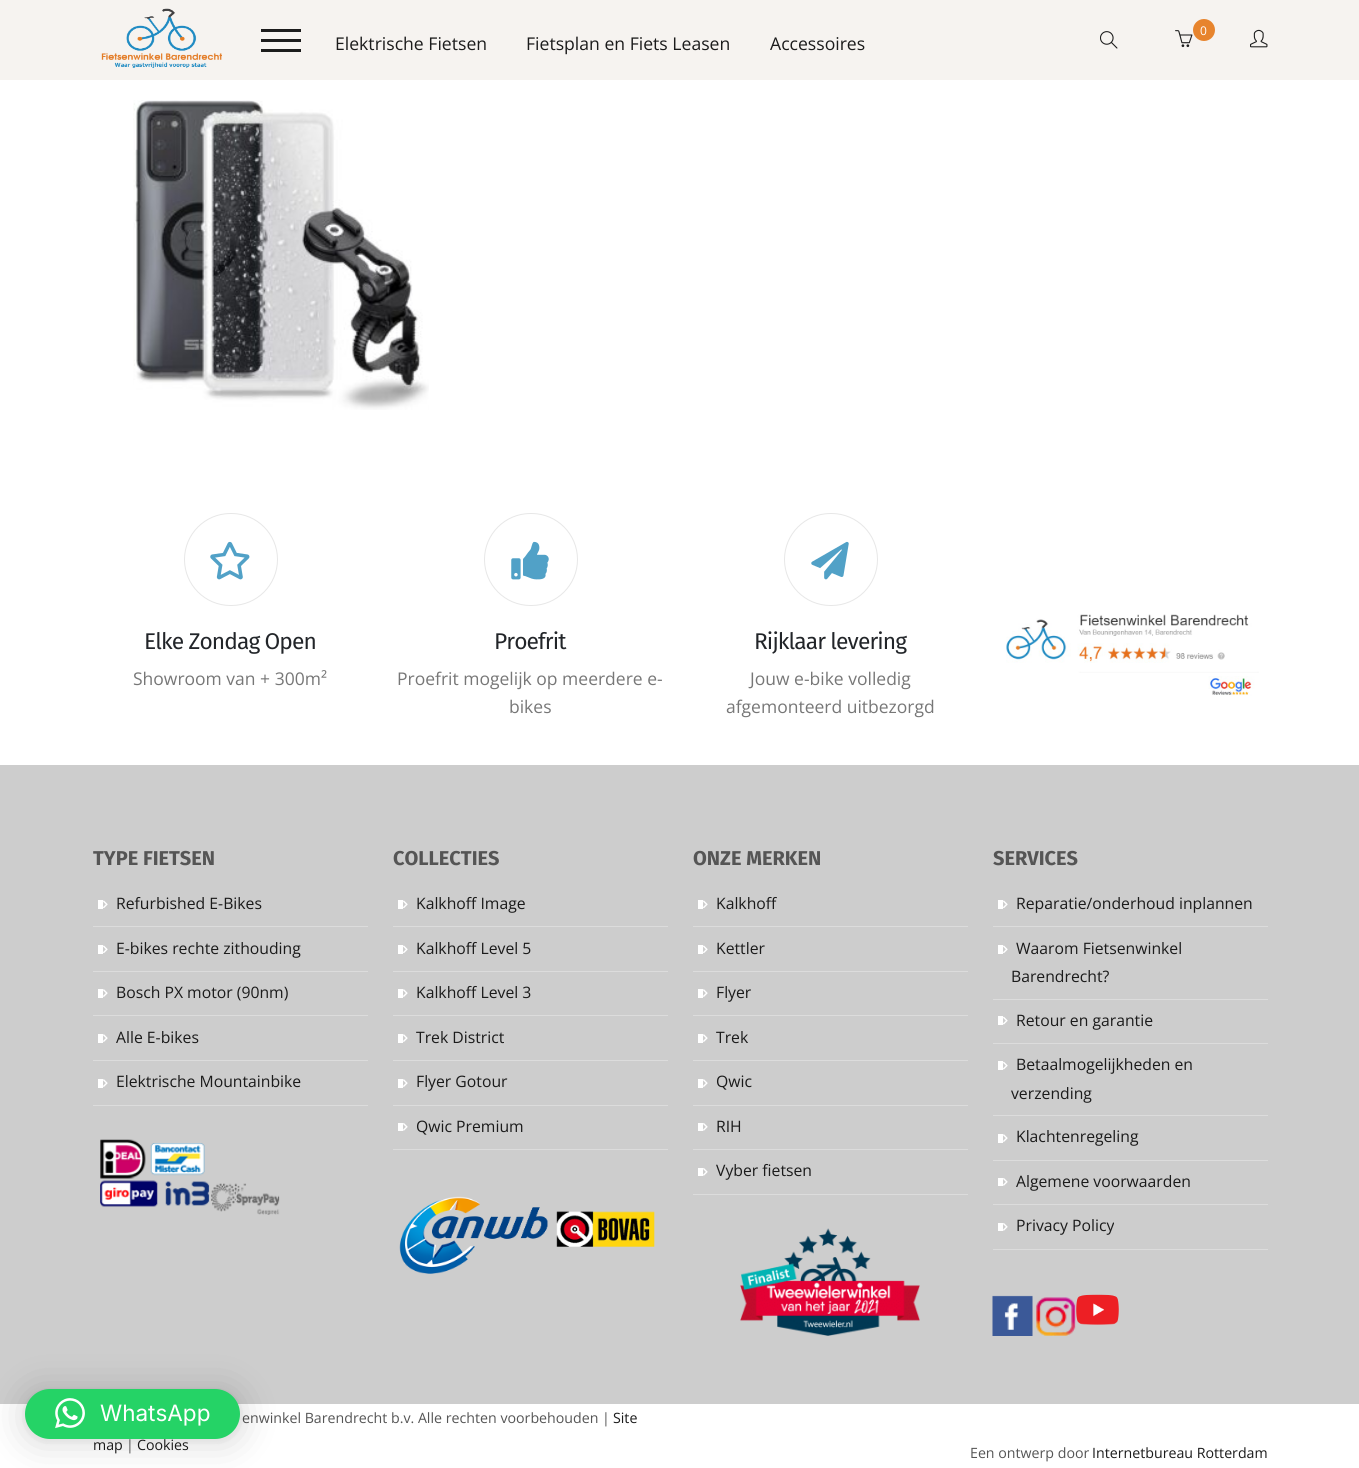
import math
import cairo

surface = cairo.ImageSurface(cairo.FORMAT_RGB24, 1359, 1468)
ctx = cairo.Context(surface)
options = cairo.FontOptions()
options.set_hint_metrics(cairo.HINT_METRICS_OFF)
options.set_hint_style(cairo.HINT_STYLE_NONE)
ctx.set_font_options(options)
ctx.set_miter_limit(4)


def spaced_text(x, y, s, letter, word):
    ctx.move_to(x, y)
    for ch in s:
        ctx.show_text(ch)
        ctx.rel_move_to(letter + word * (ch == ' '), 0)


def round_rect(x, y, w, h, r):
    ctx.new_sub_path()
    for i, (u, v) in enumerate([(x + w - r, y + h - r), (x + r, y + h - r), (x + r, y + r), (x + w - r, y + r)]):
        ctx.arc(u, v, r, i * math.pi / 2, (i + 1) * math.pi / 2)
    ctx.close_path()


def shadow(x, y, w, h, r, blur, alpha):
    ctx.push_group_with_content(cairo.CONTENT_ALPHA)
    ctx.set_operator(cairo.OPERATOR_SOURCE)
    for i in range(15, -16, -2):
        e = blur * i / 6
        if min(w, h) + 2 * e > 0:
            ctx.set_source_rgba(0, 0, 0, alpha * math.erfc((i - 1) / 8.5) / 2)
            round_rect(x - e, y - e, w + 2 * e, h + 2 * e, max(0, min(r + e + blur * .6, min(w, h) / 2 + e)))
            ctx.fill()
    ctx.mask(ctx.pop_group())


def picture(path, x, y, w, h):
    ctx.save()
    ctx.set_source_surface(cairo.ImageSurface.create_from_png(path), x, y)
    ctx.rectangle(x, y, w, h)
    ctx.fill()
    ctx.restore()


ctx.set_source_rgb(1, 1, 1)
ctx.paint()
ctx.set_source_rgb(0.961, 0.953, 0.941)
ctx.rectangle(0, 0, 1359, 80)
ctx.fill()
picture("img1.png", 1100, 31, 18, 18)
picture("img2.png", 1175, 30, 18, 18)
ctx.set_source_rgb(0.906, 0.518, 0.176)
ctx.arc(1204, 30, 11, 0, 2 * math.pi)
ctx.fill()
ctx.select_font_face("Open Sans")
ctx.set_font_size(12)
ctx.set_source_rgb(1, 1, 1)
ctx.move_to(1200, 35)
ctx.show_text("0")
picture("img3.png", 1250, 29, 18, 19)
picture("img4.png", 101, 8, 121, 60)
ctx.set_source_rgb(0.11, 0.11, 0.11)
ctx.rectangle(261, 29, 40, 3)
ctx.fill()
ctx.rectangle(261, 39, 40, 3)
ctx.fill()
ctx.rectangle(261, 49, 40, 3)
ctx.fill()
ctx.set_font_size(17.6)
ctx.set_source_rgb(0.106, 0.106, 0.106)
ctx.move_to(335, 50)
ctx.show_text("Elektrische Fietsen")
ctx.move_to(526, 50)
ctx.show_text("Fietsplan en Fiets Leasen")
ctx.move_to(770, 50)
ctx.show_text("Accessoires")
picture("img5.png", 133, 100, 296, 310)
round_rect(184.5, 513.5, 93, 92, 46)
ctx.set_source_rgb(0.906, 0.906, 0.906)
ctx.set_line_width(1)
ctx.stroke()
picture("img6.png", 210, 541, 40, 39)
ctx.select_font_face("Fira Sans")
ctx.set_font_size(22.75)
ctx.set_source_rgb(0.133, 0.145, 0.161)
spaced_text(144, 649, "Elke Zondag Open", -0.9, 0)
ctx.select_font_face("Open Sans")
ctx.set_font_size(17.5)
ctx.set_source_rgb(0.467, 0.467, 0.467)
ctx.move_to(133, 685)
ctx.show_text("Showroom van + 300m²")
round_rect(484.5, 513.5, 93, 92, 46)
ctx.set_source_rgb(0.906, 0.906, 0.906)
ctx.stroke()
picture("img7.png", 511, 541, 38, 39)
ctx.select_font_face("Fira Sans")
ctx.set_font_size(22.75)
ctx.set_source_rgb(0.133, 0.145, 0.161)
spaced_text(494, 649, "Proefrit", -0.9, 0)
ctx.select_font_face("Open Sans")
ctx.set_font_size(17.5)
ctx.set_source_rgb(0.467, 0.467, 0.467)
ctx.move_to(397, 685)
ctx.show_text("Proefrit mogelijk op meerdere e-")
ctx.move_to(509, 713)
ctx.show_text("bikes")
round_rect(784.5, 513.5, 93, 92, 46)
ctx.set_source_rgb(0.906, 0.906, 0.906)
ctx.stroke()
picture("img8.png", 811, 541, 38, 39)
ctx.select_font_face("Fira Sans")
ctx.set_font_size(22.75)
ctx.set_source_rgb(0.133, 0.145, 0.161)
spaced_text(754, 649, "Rijklaar levering", -0.9, 0)
ctx.select_font_face("Open Sans")
ctx.set_font_size(17.5)
ctx.set_source_rgb(0.467, 0.467, 0.467)
ctx.move_to(750, 685)
ctx.show_text("Jouw e-bike volledig")
ctx.move_to(726, 713)
ctx.show_text("afgemonteerd uitbezorgd")
picture("img9.png", 1006, 614, 253, 82)
ctx.set_source_rgb(0.804, 0.804, 0.804)
ctx.rectangle(0, 765, 1359, 639)
ctx.fill()
ctx.select_font_face("Fira Sans", cairo.FONT_SLANT_NORMAL, cairo.FONT_WEIGHT_BOLD)
ctx.set_font_size(20)
ctx.set_source_rgb(0.333, 0.333, 0.333)
ctx.move_to(93, 865)
ctx.show_text("TYPE FIETSEN")
ctx.set_source_rgb(0.863, 0.863, 0.863)
ctx.rectangle(93, 1105, 275, 1)
ctx.fill()
ctx.set_source_rgb(1, 1, 1)
ctx.rectangle(98, 900, 5, 9)
ctx.fill()
picture("img10.png", 103, 900, 5, 8)
ctx.select_font_face("Open Sans")
ctx.set_font_size(15.75)
ctx.set_source_rgb(0.106, 0.106, 0.106)
ctx.move_to(116, 909)
ctx.show_text("Refurbished E-Bikes")
ctx.set_source_rgb(0.863, 0.863, 0.863)
ctx.rectangle(93, 926, 275, 1)
ctx.fill()
ctx.set_source_rgb(1, 1, 1)
ctx.rectangle(98, 945, 5, 9)
ctx.fill()
picture("img10.png", 103, 945, 5, 8)
ctx.set_source_rgb(0.106, 0.106, 0.106)
ctx.move_to(116, 954)
ctx.show_text("E-bikes rechte zithouding")
ctx.set_source_rgb(0.863, 0.863, 0.863)
ctx.rectangle(93, 971, 275, 1)
ctx.fill()
ctx.set_source_rgb(1, 1, 1)
ctx.rectangle(98, 989, 5, 9)
ctx.fill()
picture("img11.png", 103, 989, 5, 8)
ctx.set_source_rgb(0.106, 0.106, 0.106)
ctx.move_to(116, 998)
ctx.show_text("Bosch PX motor (90nm)")
ctx.set_source_rgb(0.863, 0.863, 0.863)
ctx.rectangle(93, 1015, 275, 1)
ctx.fill()
ctx.set_source_rgb(1, 1, 1)
ctx.rectangle(98, 1034, 5, 9)
ctx.fill()
picture("img11.png", 103, 1034, 5, 8)
ctx.set_source_rgb(0.106, 0.106, 0.106)
ctx.move_to(116, 1043)
ctx.show_text("Alle E-bikes")
ctx.set_source_rgb(0.863, 0.863, 0.863)
ctx.rectangle(93, 1060, 275, 1)
ctx.fill()
ctx.set_source_rgb(1, 1, 1)
ctx.rectangle(98, 1079, 5, 9)
ctx.fill()
picture("img11.png", 103, 1079, 5, 8)
ctx.set_source_rgb(0.106, 0.106, 0.106)
ctx.move_to(116, 1087)
ctx.show_text("Elektrische Mountainbike")
picture("img12.png", 100, 1139, 180, 76)
ctx.select_font_face("Fira Sans", cairo.FONT_SLANT_NORMAL, cairo.FONT_WEIGHT_BOLD)
ctx.set_font_size(20)
ctx.set_source_rgb(0.333, 0.333, 0.333)
ctx.move_to(393, 865)
ctx.show_text("COLLECTIES")
ctx.set_source_rgb(0.863, 0.863, 0.863)
ctx.rectangle(393, 1149, 275, 1)
ctx.fill()
ctx.set_source_rgb(1, 1, 1)
ctx.rectangle(398, 900, 5, 9)
ctx.fill()
picture("img10.png", 403, 900, 5, 8)
ctx.select_font_face("Open Sans")
ctx.set_font_size(15.75)
ctx.set_source_rgb(0.106, 0.106, 0.106)
ctx.move_to(416, 909)
ctx.show_text("Kalkhoff Image")
ctx.set_source_rgb(0.863, 0.863, 0.863)
ctx.rectangle(393, 926, 275, 1)
ctx.fill()
ctx.set_source_rgb(1, 1, 1)
ctx.rectangle(398, 945, 5, 9)
ctx.fill()
picture("img10.png", 403, 945, 5, 8)
ctx.set_source_rgb(0.106, 0.106, 0.106)
ctx.move_to(416, 954)
ctx.show_text("Kalkhoff Level 5")
ctx.set_source_rgb(0.863, 0.863, 0.863)
ctx.rectangle(393, 971, 275, 1)
ctx.fill()
ctx.set_source_rgb(1, 1, 1)
ctx.rectangle(398, 989, 5, 9)
ctx.fill()
picture("img11.png", 403, 989, 5, 8)
ctx.set_source_rgb(0.106, 0.106, 0.106)
ctx.move_to(416, 998)
ctx.show_text("Kalkhoff Level 3")
ctx.set_source_rgb(0.863, 0.863, 0.863)
ctx.rectangle(393, 1015, 275, 1)
ctx.fill()
ctx.set_source_rgb(1, 1, 1)
ctx.rectangle(398, 1034, 5, 9)
ctx.fill()
picture("img11.png", 403, 1034, 5, 8)
ctx.set_source_rgb(0.106, 0.106, 0.106)
ctx.move_to(416, 1043)
ctx.show_text("Trek District")
ctx.set_source_rgb(0.863, 0.863, 0.863)
ctx.rectangle(393, 1060, 275, 1)
ctx.fill()
ctx.set_source_rgb(1, 1, 1)
ctx.rectangle(398, 1079, 5, 9)
ctx.fill()
picture("img11.png", 403, 1079, 5, 8)
ctx.set_source_rgb(0.106, 0.106, 0.106)
ctx.move_to(416, 1087)
ctx.show_text("Flyer Gotour")
ctx.set_source_rgb(0.863, 0.863, 0.863)
ctx.rectangle(393, 1105, 275, 1)
ctx.fill()
ctx.set_source_rgb(1, 1, 1)
ctx.rectangle(398, 1123, 5, 8)
ctx.fill()
picture("img13.png", 403, 1123, 5, 8)
ctx.set_source_rgb(0.106, 0.106, 0.106)
ctx.move_to(416, 1132)
ctx.show_text("Qwic Premium")
picture("img14.png", 399, 1196, 256, 78)
ctx.select_font_face("Fira Sans", cairo.FONT_SLANT_NORMAL, cairo.FONT_WEIGHT_BOLD)
ctx.set_font_size(20)
ctx.set_source_rgb(0.333, 0.333, 0.333)
ctx.move_to(693, 865)
ctx.show_text("ONZE MERKEN")
ctx.set_source_rgb(0.863, 0.863, 0.863)
ctx.rectangle(693, 1194, 275, 1)
ctx.fill()
ctx.set_source_rgb(1, 1, 1)
ctx.rectangle(698, 900, 5, 9)
ctx.fill()
picture("img10.png", 703, 900, 5, 8)
ctx.select_font_face("Open Sans")
ctx.set_font_size(15.75)
ctx.set_source_rgb(0.106, 0.106, 0.106)
ctx.move_to(716, 909)
ctx.show_text("Kalkhoff")
ctx.set_source_rgb(0.863, 0.863, 0.863)
ctx.rectangle(693, 926, 275, 1)
ctx.fill()
ctx.set_source_rgb(1, 1, 1)
ctx.rectangle(698, 945, 5, 9)
ctx.fill()
picture("img10.png", 703, 945, 5, 8)
ctx.set_source_rgb(0.106, 0.106, 0.106)
ctx.move_to(716, 954)
ctx.show_text("Kettler")
ctx.set_source_rgb(0.863, 0.863, 0.863)
ctx.rectangle(693, 971, 275, 1)
ctx.fill()
ctx.set_source_rgb(1, 1, 1)
ctx.rectangle(698, 989, 5, 9)
ctx.fill()
picture("img11.png", 703, 989, 5, 8)
ctx.set_source_rgb(0.106, 0.106, 0.106)
ctx.move_to(716, 998)
ctx.show_text("Flyer")
ctx.set_source_rgb(0.863, 0.863, 0.863)
ctx.rectangle(693, 1015, 275, 1)
ctx.fill()
ctx.set_source_rgb(1, 1, 1)
ctx.rectangle(698, 1034, 5, 9)
ctx.fill()
picture("img11.png", 703, 1034, 5, 8)
ctx.set_source_rgb(0.106, 0.106, 0.106)
ctx.move_to(716, 1043)
ctx.show_text("Trek")
ctx.set_source_rgb(0.863, 0.863, 0.863)
ctx.rectangle(693, 1060, 275, 1)
ctx.fill()
ctx.set_source_rgb(1, 1, 1)
ctx.rectangle(698, 1079, 5, 9)
ctx.fill()
picture("img11.png", 703, 1079, 5, 8)
ctx.set_source_rgb(0.106, 0.106, 0.106)
ctx.move_to(716, 1087)
ctx.show_text("Qwic")
ctx.set_source_rgb(0.863, 0.863, 0.863)
ctx.rectangle(693, 1105, 275, 1)
ctx.fill()
ctx.set_source_rgb(1, 1, 1)
ctx.rectangle(698, 1123, 5, 8)
ctx.fill()
picture("img13.png", 703, 1123, 5, 8)
ctx.set_source_rgb(0.106, 0.106, 0.106)
ctx.move_to(716, 1132)
ctx.show_text("RIH")
ctx.set_source_rgb(0.863, 0.863, 0.863)
ctx.rectangle(693, 1149, 275, 1)
ctx.fill()
ctx.set_source_rgb(1, 1, 1)
ctx.rectangle(698, 1168, 5, 8)
ctx.fill()
picture("img13.png", 703, 1168, 5, 8)
ctx.set_source_rgb(0.106, 0.106, 0.106)
ctx.move_to(716, 1176)
ctx.show_text("Vyber fietsen")
picture("img15.png", 740, 1228, 180, 108)
ctx.select_font_face("Fira Sans", cairo.FONT_SLANT_NORMAL, cairo.FONT_WEIGHT_BOLD)
ctx.set_font_size(20)
ctx.set_source_rgb(0.333, 0.333, 0.333)
ctx.move_to(993, 865)
ctx.show_text("SERVICES")
ctx.set_source_rgb(0.863, 0.863, 0.863)
ctx.rectangle(993, 1249, 275, 1)
ctx.fill()
ctx.set_source_rgb(1, 1, 1)
ctx.rectangle(998, 900, 5, 9)
ctx.fill()
picture("img10.png", 1003, 900, 5, 8)
ctx.select_font_face("Open Sans")
ctx.set_font_size(15.75)
ctx.set_source_rgb(0.106, 0.106, 0.106)
ctx.move_to(1016, 909)
ctx.show_text("Reparatie/onderhoud inplannen")
ctx.set_source_rgb(0.863, 0.863, 0.863)
ctx.rectangle(993, 926, 275, 1)
ctx.fill()
ctx.set_source_rgb(1, 1, 1)
ctx.rectangle(998, 945, 5, 9)
ctx.fill()
picture("img10.png", 1003, 945, 5, 8)
ctx.set_source_rgb(0.106, 0.106, 0.106)
ctx.move_to(1016, 954)
ctx.show_text("Waarom Fietsenwinkel")
ctx.move_to(1011, 982)
ctx.show_text("Barendrecht?")
ctx.set_source_rgb(0.863, 0.863, 0.863)
ctx.rectangle(993, 999, 275, 1)
ctx.fill()
ctx.set_source_rgb(1, 1, 1)
ctx.rectangle(998, 1016, 5, 9)
ctx.fill()
picture("img16.png", 1003, 1016, 5, 9)
ctx.set_source_rgb(0.106, 0.106, 0.106)
ctx.move_to(1016, 1026)
ctx.show_text("Retour en garantie")
ctx.set_source_rgb(0.863, 0.863, 0.863)
ctx.rectangle(993, 1043, 275, 1)
ctx.fill()
ctx.set_source_rgb(1, 1, 1)
ctx.rectangle(998, 1061, 5, 9)
ctx.fill()
picture("img16.png", 1003, 1061, 5, 9)
ctx.set_source_rgb(0.106, 0.106, 0.106)
ctx.move_to(1016, 1070)
ctx.show_text("Betaalmogelijkheden en")
ctx.move_to(1011, 1099)
ctx.show_text("verzending")
ctx.set_source_rgb(0.863, 0.863, 0.863)
ctx.rectangle(993, 1115, 275, 1)
ctx.fill()
ctx.set_source_rgb(1, 1, 1)
ctx.rectangle(998, 1134, 5, 9)
ctx.fill()
picture("img11.png", 1003, 1134, 5, 8)
ctx.set_source_rgb(0.106, 0.106, 0.106)
ctx.move_to(1016, 1142)
ctx.show_text("Klachtenregeling")
ctx.set_source_rgb(0.863, 0.863, 0.863)
ctx.rectangle(993, 1160, 275, 1)
ctx.fill()
ctx.set_source_rgb(1, 1, 1)
ctx.rectangle(998, 1178, 5, 8)
ctx.fill()
picture("img13.png", 1003, 1178, 5, 8)
ctx.set_source_rgb(0.106, 0.106, 0.106)
ctx.move_to(1016, 1187)
ctx.show_text("Algemene voorwaarden")
ctx.set_source_rgb(0.863, 0.863, 0.863)
ctx.rectangle(993, 1204, 275, 1)
ctx.fill()
ctx.set_source_rgb(1, 1, 1)
ctx.rectangle(998, 1223, 5, 8)
ctx.fill()
picture("img13.png", 1003, 1223, 5, 8)
ctx.set_source_rgb(0.106, 0.106, 0.106)
ctx.move_to(1016, 1231)
ctx.show_text("Privacy Policy")
picture("img17.png", 992, 1295, 41, 41)
picture("img18.png", 1036, 1297, 40, 39)
picture("img19.png", 1076, 1294, 43, 31)
ctx.set_font_size(14.2)
ctx.set_source_rgb(0.333, 0.333, 0.333)
ctx.move_to(242, 1423)
ctx.show_text("enwinkel Barendrecht b.v. Alle rechten voorbehouden |")
ctx.set_source_rgb(0.106, 0.106, 0.106)
ctx.move_to(613, 1423)
ctx.show_text("Site")
ctx.move_to(93, 1450)
ctx.show_text("map")
ctx.set_source_rgb(0.333, 0.333, 0.333)
ctx.move_to(126, 1450)
ctx.show_text("|")
ctx.set_source_rgb(0.106, 0.106, 0.106)
ctx.move_to(137, 1450)
ctx.show_text("Cookies")
ctx.set_source_rgb(0.333, 0.333, 0.333)
ctx.move_to(970, 1458)
ctx.show_text("Een ontwerp door")
ctx.set_source_rgb(0.106, 0.106, 0.106)
ctx.move_to(1092, 1458)
ctx.show_text("Internetbureau Rotterdam")
ctx.set_source_rgb(0, 0, 0)
shadow(25, 1391, 215, 50, 25, 20, 0.16)
shadow(25, 1390, 215, 50, 25, 4, 0.06)
ctx.set_source_rgb(0.145, 0.827, 0.4)
round_rect(25, 1389, 215, 50, 25)
ctx.fill()
picture("img20.png", 55, 1398, 30, 31)
ctx.select_font_face("Inter")
ctx.set_font_size(22.5)
ctx.set_source_rgb(1, 1, 1)
ctx.move_to(100, 1421)
ctx.show_text("WhatsApp")
surface.write_to_png("page.png")
